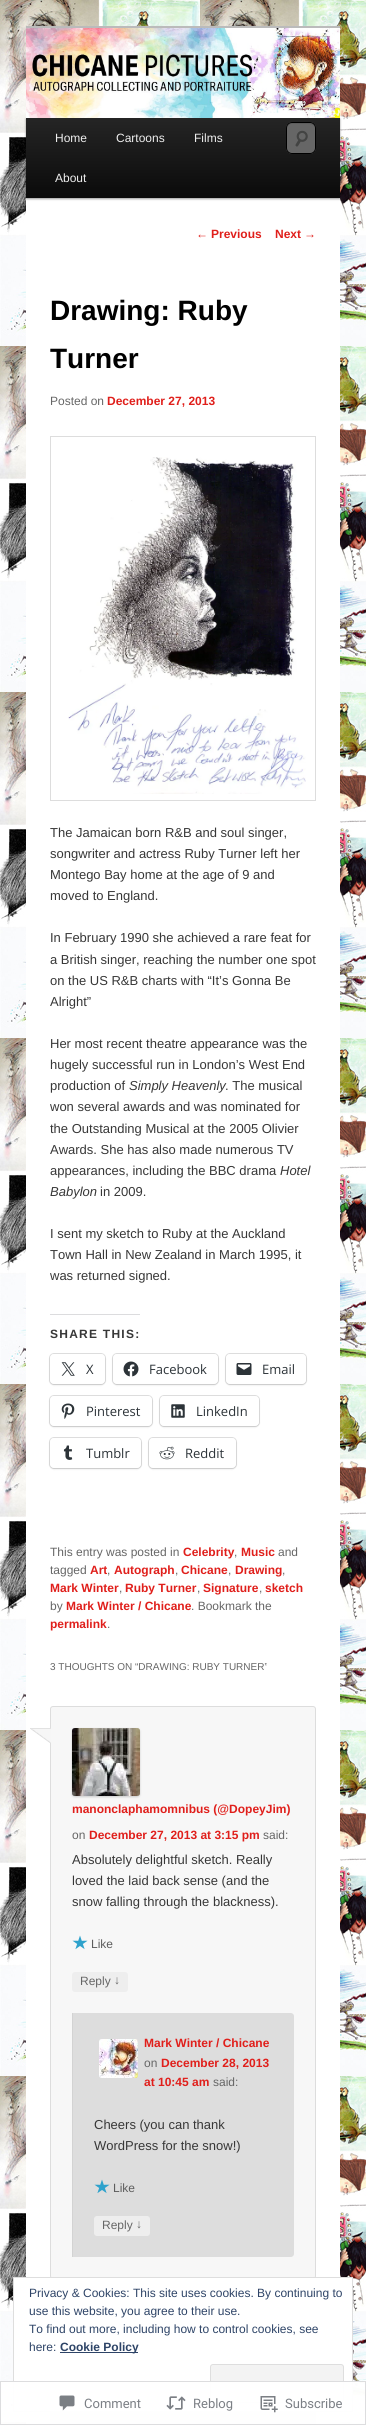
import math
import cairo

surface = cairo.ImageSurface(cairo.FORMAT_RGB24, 366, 2425)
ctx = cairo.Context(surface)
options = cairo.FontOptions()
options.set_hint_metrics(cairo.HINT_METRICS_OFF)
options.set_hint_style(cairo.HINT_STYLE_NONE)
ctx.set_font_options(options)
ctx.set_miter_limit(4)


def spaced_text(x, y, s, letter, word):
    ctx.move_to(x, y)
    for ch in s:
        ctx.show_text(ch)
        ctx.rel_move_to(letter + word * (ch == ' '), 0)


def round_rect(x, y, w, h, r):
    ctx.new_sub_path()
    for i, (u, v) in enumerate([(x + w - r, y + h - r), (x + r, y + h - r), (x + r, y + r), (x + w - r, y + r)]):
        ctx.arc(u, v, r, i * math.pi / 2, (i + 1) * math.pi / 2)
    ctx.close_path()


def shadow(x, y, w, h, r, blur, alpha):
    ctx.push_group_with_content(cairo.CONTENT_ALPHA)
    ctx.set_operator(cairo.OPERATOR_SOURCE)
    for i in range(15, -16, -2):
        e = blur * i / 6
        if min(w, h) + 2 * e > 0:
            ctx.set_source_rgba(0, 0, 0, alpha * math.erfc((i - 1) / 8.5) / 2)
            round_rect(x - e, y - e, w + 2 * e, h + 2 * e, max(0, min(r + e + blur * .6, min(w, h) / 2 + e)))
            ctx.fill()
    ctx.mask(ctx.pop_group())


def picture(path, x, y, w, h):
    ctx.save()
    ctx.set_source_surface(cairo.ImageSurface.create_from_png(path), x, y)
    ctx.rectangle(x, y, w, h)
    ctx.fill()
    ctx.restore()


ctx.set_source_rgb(1, 1, 1)
ctx.paint()
picture("img1.png", 0, 0, 366, 2425)
ctx.set_source_rgb(1, 1, 1)
ctx.rectangle(26, 198, 314, 2227)
ctx.fill()
ctx.set_source_rgb(0.733, 0.733, 0.733)
ctx.rectangle(26, 26, 314, 2)
ctx.fill()
ctx.set_source_rgb(0, 0, 0)
shadow(26, 119, 314, 80, 0, 1, 0.4)
picture("img2.png", 26, 28, 314, 90)
gradient = cairo.LinearGradient(183, 118, 183, 198)
gradient.add_color_stop_rgba(0, 0.145, 0.145, 0.145, 1)
gradient.add_color_stop_rgba(1, 0.039, 0.039, 0.039, 1)
ctx.set_source(gradient)
ctx.rectangle(26, 118, 314, 80)
ctx.fill()
ctx.select_font_face("Liberation Sans")
ctx.set_font_size(12)
ctx.set_source_rgb(0.933, 0.933, 0.933)
ctx.move_to(55, 142)
ctx.show_text("Home")
ctx.move_to(116, 142)
ctx.show_text("Cartoons")
ctx.move_to(194, 142)
ctx.show_text("Films")
ctx.move_to(55, 182)
ctx.show_text("About")
ctx.set_source_rgb(0.4, 0.4, 0.4)
round_rect(286, 122, 30, 32, 6)
ctx.fill()
picture("img3.png", 295, 130, 13, 17)
ctx.set_source_rgb(0.361, 0.361, 0.361)
ctx.new_path()
ctx.move_to(292, 124)
ctx.line_to(307, 124)
ctx.curve_to(312, 124, 314, 125.5, 315, 127.5)
ctx.curve_to(315, 125, 312.5, 123, 310, 123)
ctx.line_to(292, 123)
ctx.curve_to(289, 123, 287, 125, 287, 128)
ctx.line_to(287, 129)
ctx.curve_to(287.5, 126.5, 289, 124, 292, 124)
ctx.close_path()
ctx.fill()
round_rect(286.5, 122.5, 29, 31, 5.5)
ctx.set_source_rgb(0, 0, 0)
ctx.set_line_width(1)
ctx.stroke()
ctx.set_source_rgb(0.878, 0.122, 0.106)
ctx.move_to(196, 238)
ctx.show_text("←")
ctx.select_font_face("Liberation Sans", cairo.FONT_SLANT_NORMAL, cairo.FONT_WEIGHT_BOLD)
ctx.move_to(211, 238)
ctx.show_text("Previous")
ctx.move_to(275, 238)
ctx.show_text("Next")
ctx.select_font_face("Liberation Sans")
ctx.move_to(304, 238)
ctx.show_text("→")
ctx.select_font_face("Liberation Sans", cairo.FONT_SLANT_NORMAL, cairo.FONT_WEIGHT_BOLD)
ctx.set_font_size(28)
ctx.set_source_rgb(0, 0, 0)
ctx.move_to(50, 320)
ctx.show_text("Drawing: Ruby")
ctx.move_to(50, 368)
ctx.show_text("Turner")
ctx.select_font_face("Liberation Sans")
ctx.set_font_size(12)
ctx.set_source_rgb(0.4, 0.4, 0.4)
ctx.move_to(50, 405)
ctx.show_text("Posted on")
ctx.select_font_face("Liberation Sans", cairo.FONT_SLANT_NORMAL, cairo.FONT_WEIGHT_BOLD)
ctx.set_source_rgb(0.878, 0.122, 0.106)
ctx.move_to(107, 405)
ctx.show_text("December 27, 2013")
ctx.rectangle(50.5, 436.5, 265, 364)
ctx.set_source_rgb(0.867, 0.867, 0.867)
ctx.stroke()
picture("img4.png", 68, 457, 238, 337)
ctx.select_font_face("Liberation Sans")
ctx.set_font_size(13)
ctx.set_source_rgb(0.216, 0.216, 0.216)
ctx.move_to(50, 837)
ctx.show_text("The Jamaican born R&B and soul singer,")
ctx.move_to(50, 858)
ctx.show_text("songwriter and actress Ruby Turner left her")
ctx.move_to(50, 879)
ctx.show_text("Montego Bay home at the age of 9 and")
ctx.move_to(50, 900)
ctx.show_text("moved to England.")
ctx.move_to(50, 942)
ctx.show_text("In February 1990 she achieved a rare feat for")
ctx.move_to(50, 964)
ctx.show_text("a British singer, reaching the number one spot")
ctx.move_to(50, 985)
ctx.show_text("on the US R&B charts with “It’s Gonna Be")
ctx.move_to(50, 1006)
ctx.show_text("Alright”")
ctx.move_to(50, 1048)
ctx.show_text("Her most recent theatre appearance was the")
ctx.move_to(50, 1069)
ctx.show_text("hugely successful run in London’s West End")
ctx.move_to(50, 1090)
ctx.show_text("production of")
ctx.select_font_face("Liberation Sans", cairo.FONT_SLANT_ITALIC)
ctx.move_to(129, 1090)
ctx.show_text("Simply Heavenly")
ctx.select_font_face("Liberation Sans")
ctx.move_to(225, 1090)
ctx.show_text(". The musical")
ctx.move_to(50, 1111)
ctx.show_text("won several awards and was nominated for")
ctx.move_to(50, 1133)
ctx.show_text("the Outstanding Musical at the 2005 Olivier")
ctx.move_to(50, 1154)
ctx.show_text("Awards. She has also made numerous TV")
ctx.move_to(50, 1175)
ctx.show_text("appearances, including the BBC drama")
ctx.select_font_face("Liberation Sans", cairo.FONT_SLANT_ITALIC)
ctx.move_to(280, 1175)
ctx.show_text("Hotel")
ctx.move_to(50, 1196)
ctx.show_text("Babylon")
ctx.select_font_face("Liberation Sans")
ctx.move_to(100, 1196)
ctx.show_text("in 2009.")
ctx.move_to(50, 1238)
ctx.show_text("I sent my sketch to Ruby at the Auckland")
ctx.move_to(50, 1259)
ctx.show_text("Town Hall in New Zealand in March 1995, it")
ctx.move_to(50, 1280)
ctx.show_text("was returned signed.")
ctx.set_source_rgb(0.863, 0.863, 0.871)
ctx.rectangle(50, 1314, 90, 1)
ctx.fill()
ctx.select_font_face("Liberation Sans", cairo.FONT_SLANT_NORMAL, cairo.FONT_WEIGHT_BOLD)
ctx.set_font_size(12)
ctx.set_source_rgb(0.216, 0.216, 0.216)
spaced_text(50, 1338, "SHARE THIS:", 1.25, 0)
round_rect(49.5, 1353.5, 56, 31, 4.5)
ctx.set_source_rgb(0.878, 0.878, 0.878)
ctx.stroke()
ctx.set_source_rgb(0, 0, 0)
shadow(50, 1355, 55, 30, 4, 1, 0.12)
ctx.set_source_rgb(1, 1, 1)
round_rect(50, 1354, 55, 30, 4)
ctx.fill()
picture("img5.png", 61, 1362, 14, 14)
ctx.select_font_face("Open Sans")
ctx.set_font_size(13)
ctx.set_source_rgb(0.173, 0.2, 0.22)
ctx.move_to(86, 1374)
ctx.show_text("X")
round_rect(112.5, 1353.5, 106, 31, 4.5)
ctx.set_source_rgb(0.878, 0.878, 0.878)
ctx.stroke()
ctx.set_source_rgb(0, 0, 0)
shadow(113, 1355, 105, 30, 4, 1, 0.12)
ctx.set_source_rgb(1, 1, 1)
round_rect(113, 1354, 105, 30, 4)
ctx.fill()
picture("img6.png", 123, 1361, 16, 16)
ctx.set_source_rgb(0.173, 0.2, 0.22)
ctx.move_to(149, 1374)
ctx.show_text("Facebook")
round_rect(225.5, 1353.5, 81, 31, 4.5)
ctx.set_source_rgb(0.878, 0.878, 0.878)
ctx.stroke()
ctx.set_source_rgb(0, 0, 0)
shadow(226, 1355, 80, 30, 4, 1, 0.12)
ctx.set_source_rgb(1, 1, 1)
round_rect(226, 1354, 80, 30, 4)
ctx.fill()
picture("img7.png", 236, 1363, 16, 12)
ctx.set_source_rgb(0.173, 0.2, 0.22)
ctx.move_to(262, 1374)
ctx.show_text("Email")
round_rect(49.5, 1395.5, 103, 31, 4.5)
ctx.set_source_rgb(0.878, 0.878, 0.878)
ctx.stroke()
ctx.set_source_rgb(0, 0, 0)
shadow(50, 1397, 102, 30, 4, 1, 0.12)
ctx.set_source_rgb(1, 1, 1)
round_rect(50, 1396, 102, 30, 4)
ctx.fill()
picture("img8.png", 61, 1403, 14, 16)
ctx.set_source_rgb(0.173, 0.2, 0.22)
ctx.move_to(86, 1416)
ctx.show_text("Pinterest")
round_rect(159.5, 1395.5, 100, 31, 4.5)
ctx.set_source_rgb(0.878, 0.878, 0.878)
ctx.stroke()
ctx.set_source_rgb(0, 0, 0)
shadow(160, 1397, 99, 30, 4, 1, 0.12)
ctx.set_source_rgb(1, 1, 1)
round_rect(160, 1396, 99, 30, 4)
ctx.fill()
picture("img9.png", 171, 1404, 14, 14)
ctx.set_source_rgb(0.173, 0.2, 0.22)
ctx.move_to(196, 1416)
ctx.show_text("LinkedIn")
round_rect(49.5, 1437.5, 92, 31, 4.5)
ctx.set_source_rgb(0.878, 0.878, 0.878)
ctx.stroke()
ctx.set_source_rgb(0, 0, 0)
shadow(50, 1439, 91, 30, 4, 1, 0.12)
ctx.set_source_rgb(1, 1, 1)
round_rect(50, 1438, 91, 30, 4)
ctx.fill()
picture("img10.png", 63, 1445, 10, 15)
ctx.set_source_rgb(0.173, 0.2, 0.22)
ctx.move_to(86, 1458)
ctx.show_text("Tumblr")
round_rect(148.5, 1437.5, 88, 31, 4.5)
ctx.set_source_rgb(0.878, 0.878, 0.878)
ctx.stroke()
ctx.set_source_rgb(0, 0, 0)
shadow(149, 1439, 87, 30, 4, 1, 0.12)
ctx.set_source_rgb(1, 1, 1)
round_rect(149, 1438, 87, 30, 4)
ctx.fill()
picture("img11.png", 159, 1446, 16, 14)
ctx.set_source_rgb(0.173, 0.2, 0.22)
ctx.move_to(185, 1458)
ctx.show_text("Reddit")
ctx.select_font_face("Liberation Sans")
ctx.set_font_size(12)
ctx.set_source_rgb(0.4, 0.4, 0.4)
ctx.move_to(50, 1556)
ctx.show_text("This entry was posted in")
ctx.select_font_face("Liberation Sans", cairo.FONT_SLANT_NORMAL, cairo.FONT_WEIGHT_BOLD)
ctx.set_source_rgb(0.878, 0.122, 0.106)
ctx.move_to(183, 1556)
ctx.show_text("Celebrity")
ctx.select_font_face("Liberation Sans")
ctx.set_source_rgb(0.4, 0.4, 0.4)
ctx.move_to(234, 1556)
ctx.show_text(",")
ctx.select_font_face("Liberation Sans", cairo.FONT_SLANT_NORMAL, cairo.FONT_WEIGHT_BOLD)
ctx.set_source_rgb(0.878, 0.122, 0.106)
ctx.move_to(241, 1556)
ctx.show_text("Music")
ctx.select_font_face("Liberation Sans")
ctx.set_source_rgb(0.4, 0.4, 0.4)
ctx.move_to(278, 1556)
ctx.show_text("and")
ctx.move_to(50, 1574)
ctx.show_text("tagged")
ctx.select_font_face("Liberation Sans", cairo.FONT_SLANT_NORMAL, cairo.FONT_WEIGHT_BOLD)
ctx.set_source_rgb(0.878, 0.122, 0.106)
ctx.move_to(90, 1574)
ctx.show_text("Art")
ctx.select_font_face("Liberation Sans")
ctx.set_source_rgb(0.4, 0.4, 0.4)
ctx.move_to(107, 1574)
ctx.show_text(",")
ctx.select_font_face("Liberation Sans", cairo.FONT_SLANT_NORMAL, cairo.FONT_WEIGHT_BOLD)
ctx.set_source_rgb(0.878, 0.122, 0.106)
ctx.move_to(114, 1574)
ctx.show_text("Autograph")
ctx.select_font_face("Liberation Sans")
ctx.set_source_rgb(0.4, 0.4, 0.4)
ctx.move_to(175, 1574)
ctx.show_text(",")
ctx.select_font_face("Liberation Sans", cairo.FONT_SLANT_NORMAL, cairo.FONT_WEIGHT_BOLD)
ctx.set_source_rgb(0.878, 0.122, 0.106)
ctx.move_to(181, 1574)
ctx.show_text("Chicane")
ctx.select_font_face("Liberation Sans")
ctx.set_source_rgb(0.4, 0.4, 0.4)
ctx.move_to(228, 1574)
ctx.show_text(",")
ctx.select_font_face("Liberation Sans", cairo.FONT_SLANT_NORMAL, cairo.FONT_WEIGHT_BOLD)
ctx.set_source_rgb(0.878, 0.122, 0.106)
ctx.move_to(235, 1574)
ctx.show_text("Drawing")
ctx.select_font_face("Liberation Sans")
ctx.set_source_rgb(0.4, 0.4, 0.4)
ctx.move_to(282, 1574)
ctx.show_text(",")
ctx.select_font_face("Liberation Sans", cairo.FONT_SLANT_NORMAL, cairo.FONT_WEIGHT_BOLD)
ctx.set_source_rgb(0.878, 0.122, 0.106)
ctx.move_to(50, 1592)
ctx.show_text("Mark Winter")
ctx.select_font_face("Liberation Sans")
ctx.set_source_rgb(0.4, 0.4, 0.4)
ctx.move_to(119, 1592)
ctx.show_text(",")
ctx.select_font_face("Liberation Sans", cairo.FONT_SLANT_NORMAL, cairo.FONT_WEIGHT_BOLD)
ctx.set_source_rgb(0.878, 0.122, 0.106)
ctx.move_to(125, 1592)
ctx.show_text("Ruby Turner")
ctx.select_font_face("Liberation Sans")
ctx.set_source_rgb(0.4, 0.4, 0.4)
ctx.move_to(197, 1592)
ctx.show_text(",")
ctx.select_font_face("Liberation Sans", cairo.FONT_SLANT_NORMAL, cairo.FONT_WEIGHT_BOLD)
ctx.set_source_rgb(0.878, 0.122, 0.106)
ctx.move_to(203, 1592)
ctx.show_text("Signature")
ctx.select_font_face("Liberation Sans")
ctx.set_source_rgb(0.4, 0.4, 0.4)
ctx.move_to(259, 1592)
ctx.show_text(",")
ctx.select_font_face("Liberation Sans", cairo.FONT_SLANT_NORMAL, cairo.FONT_WEIGHT_BOLD)
ctx.set_source_rgb(0.878, 0.122, 0.106)
ctx.move_to(265, 1592)
ctx.show_text("sketch")
ctx.select_font_face("Liberation Sans")
ctx.set_source_rgb(0.4, 0.4, 0.4)
ctx.move_to(50, 1610)
ctx.show_text("by")
ctx.select_font_face("Liberation Sans", cairo.FONT_SLANT_NORMAL, cairo.FONT_WEIGHT_BOLD)
ctx.set_source_rgb(0.878, 0.122, 0.106)
ctx.move_to(66, 1610)
ctx.show_text("Mark Winter / Chicane")
ctx.select_font_face("Liberation Sans")
ctx.set_source_rgb(0.4, 0.4, 0.4)
ctx.move_to(191, 1610)
ctx.show_text(". Bookmark the")
ctx.select_font_face("Liberation Sans", cairo.FONT_SLANT_NORMAL, cairo.FONT_WEIGHT_BOLD)
ctx.set_source_rgb(0.878, 0.122, 0.106)
ctx.move_to(50, 1628)
ctx.show_text("permalink")
ctx.select_font_face("Liberation Sans")
ctx.set_source_rgb(0.4, 0.4, 0.4)
ctx.move_to(107, 1628)
ctx.show_text(".")
ctx.set_font_size(10)
ctx.move_to(50, 1670)
ctx.show_text("3 THOUGHTS ON “DRAWING: RUBY TURNER”")
ctx.set_source_rgb(0.965, 0.965, 0.965)
round_rect(50.5, 1706.5, 265, 572, 2.5)
ctx.fill_preserve()
ctx.set_source_rgb(0.867, 0.867, 0.867)
ctx.stroke()
picture("img12.png", 30, 1728, 21, 15)
ctx.set_source_rgb(0.8, 0.8, 0.8)
shadow(72, 1729, 68, 68, 3, 1, 1)
picture("img13.png", 72, 1728, 68, 68)
ctx.select_font_face("Liberation Sans", cairo.FONT_SLANT_NORMAL, cairo.FONT_WEIGHT_BOLD)
ctx.set_font_size(12)
ctx.set_source_rgb(0.878, 0.122, 0.106)
ctx.move_to(72, 1813)
ctx.show_text("manonclaphamomnibus (@DopeyJim)")
ctx.select_font_face("Liberation Sans")
ctx.set_source_rgb(0.4, 0.4, 0.4)
ctx.move_to(72, 1839)
ctx.show_text("on")
ctx.select_font_face("Liberation Sans", cairo.FONT_SLANT_NORMAL, cairo.FONT_WEIGHT_BOLD)
ctx.set_source_rgb(0.878, 0.122, 0.106)
ctx.move_to(89, 1839)
ctx.show_text("December 27, 2013 at 3:15 pm")
ctx.select_font_face("Liberation Sans")
ctx.set_source_rgb(0.4, 0.4, 0.4)
ctx.move_to(263, 1839)
ctx.show_text("said:")
ctx.set_font_size(13)
ctx.set_source_rgb(0.216, 0.216, 0.216)
ctx.move_to(72, 1864)
ctx.show_text("Absolutely delightful sketch. Really")
ctx.move_to(72, 1885)
ctx.show_text("loved the laid back sense (and the")
ctx.move_to(72, 1906)
ctx.show_text("snow falling through the blackness).")
picture("img14.png", 72, 1935, 16, 15)
ctx.set_font_size(12)
ctx.set_source_rgb(0.365, 0.365, 0.365)
ctx.move_to(91, 1948)
ctx.show_text("Like")
ctx.set_source_rgb(0.933, 0.933, 0.933)
round_rect(72, 1972, 56, 20, 3)
ctx.fill()
ctx.set_source_rgb(0.4, 0.4, 0.4)
ctx.move_to(80, 1985)
ctx.show_text("Reply")
ctx.move_to(114, 1984)
ctx.show_text("↓")
ctx.set_source_rgb(0.867, 0.867, 0.867)
ctx.new_path()
ctx.move_to(72, 2013)
ctx.line_to(291, 2013)
ctx.curve_to(292.5, 2013, 294, 2014.5, 294, 2016)
ctx.line_to(294, 2254)
ctx.curve_to(294, 2255.5, 292.5, 2257, 291, 2257)
ctx.line_to(72, 2257)
ctx.close_path()
ctx.fill()
ctx.set_source_rgb(0.827, 0.827, 0.827)
ctx.rectangle(72, 2013, 1, 244)
ctx.fill()
picture("img15.png", 99, 2039, 39, 39)
ctx.select_font_face("Liberation Sans", cairo.FONT_SLANT_NORMAL, cairo.FONT_WEIGHT_BOLD)
ctx.set_source_rgb(0.878, 0.122, 0.106)
ctx.move_to(144, 2047)
ctx.show_text("Mark Winter / Chicane")
ctx.select_font_face("Liberation Sans")
ctx.set_source_rgb(0.4, 0.4, 0.4)
ctx.move_to(144, 2067)
ctx.show_text("on")
ctx.select_font_face("Liberation Sans", cairo.FONT_SLANT_NORMAL, cairo.FONT_WEIGHT_BOLD)
ctx.set_source_rgb(0.878, 0.122, 0.106)
ctx.move_to(161, 2067)
ctx.show_text("December 28, 2013")
ctx.move_to(144, 2086)
ctx.show_text("at 10:45 am")
ctx.select_font_face("Liberation Sans")
ctx.set_source_rgb(0.4, 0.4, 0.4)
ctx.move_to(213, 2086)
ctx.show_text("said:")
ctx.set_font_size(13)
ctx.set_source_rgb(0.216, 0.216, 0.216)
ctx.move_to(94, 2129)
ctx.show_text("Cheers (you can thank")
ctx.move_to(94, 2150)
ctx.show_text("WordPress for the snow!)")
picture("img16.png", 94, 2179, 16, 15)
ctx.set_font_size(12)
ctx.set_source_rgb(0.365, 0.365, 0.365)
ctx.move_to(113, 2192)
ctx.show_text("Like")
ctx.set_source_rgb(0.933, 0.933, 0.933)
round_rect(94, 2216, 56, 20, 3)
ctx.fill()
ctx.set_source_rgb(0.4, 0.4, 0.4)
ctx.move_to(102, 2229)
ctx.show_text("Reply")
ctx.move_to(136, 2228)
ctx.show_text("↓")
ctx.set_source_rgb(0.867, 0.867, 0.867)
ctx.rectangle(51, 2412, 264, 13)
ctx.fill()
ctx.rectangle(50.5, 2363.5, 265, 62)
ctx.set_source_rgb(0.827, 0.827, 0.827)
ctx.stroke()
ctx.set_source_rgb(1, 1, 1)
ctx.rectangle(13.5, 2277.5, 339, 134)
ctx.fill_preserve()
ctx.set_source_rgb(0.871, 0.871, 0.871)
ctx.stroke()
ctx.set_source_rgb(0.18, 0.267, 0.404)
ctx.move_to(29, 2297)
ctx.show_text("Privacy & Cookies: This site uses cookies. By continuing to")
ctx.move_to(29, 2315)
ctx.show_text("use this website, you agree to their use.")
ctx.move_to(29, 2333)
ctx.show_text("To find out more, including how to control cookies, see")
ctx.move_to(29, 2351)
ctx.show_text("here:")
ctx.rectangle(60, 2352, 78, 1)
ctx.fill()
ctx.select_font_face("Liberation Sans", cairo.FONT_SLANT_NORMAL, cairo.FONT_WEIGHT_BOLD)
ctx.move_to(60, 2351)
ctx.show_text("Cookie Policy")
ctx.set_source_rgb(0.953, 0.953, 0.953)
round_rect(210.5, 2364.5, 133, 38, 2.5)
ctx.fill_preserve()
ctx.set_source_rgb(0.871, 0.871, 0.871)
ctx.stroke()
ctx.set_source_rgba(1, 1, 1, 0.98)
ctx.rectangle(0, 2381, 366, 44)
ctx.fill()
ctx.rectangle(0.5, 2381.5, 365, 43)
ctx.set_source_rgba(0.863, 0.863, 0.871, 0.98)
ctx.stroke()
picture("img17.png", 59, 2395, 16, 16)
ctx.select_font_face("Roboto")
ctx.set_font_size(13)
ctx.set_source_rgb(0.482, 0.498, 0.522)
ctx.move_to(84, 2408)
ctx.show_text("Comment")
picture("img18.png", 166, 2396, 20, 14)
ctx.move_to(193, 2408)
ctx.show_text("Reblog")
picture("img19.png", 260, 2396, 18, 17)
ctx.move_to(285, 2408)
ctx.show_text("Subscribe")
surface.write_to_png("page.png")
